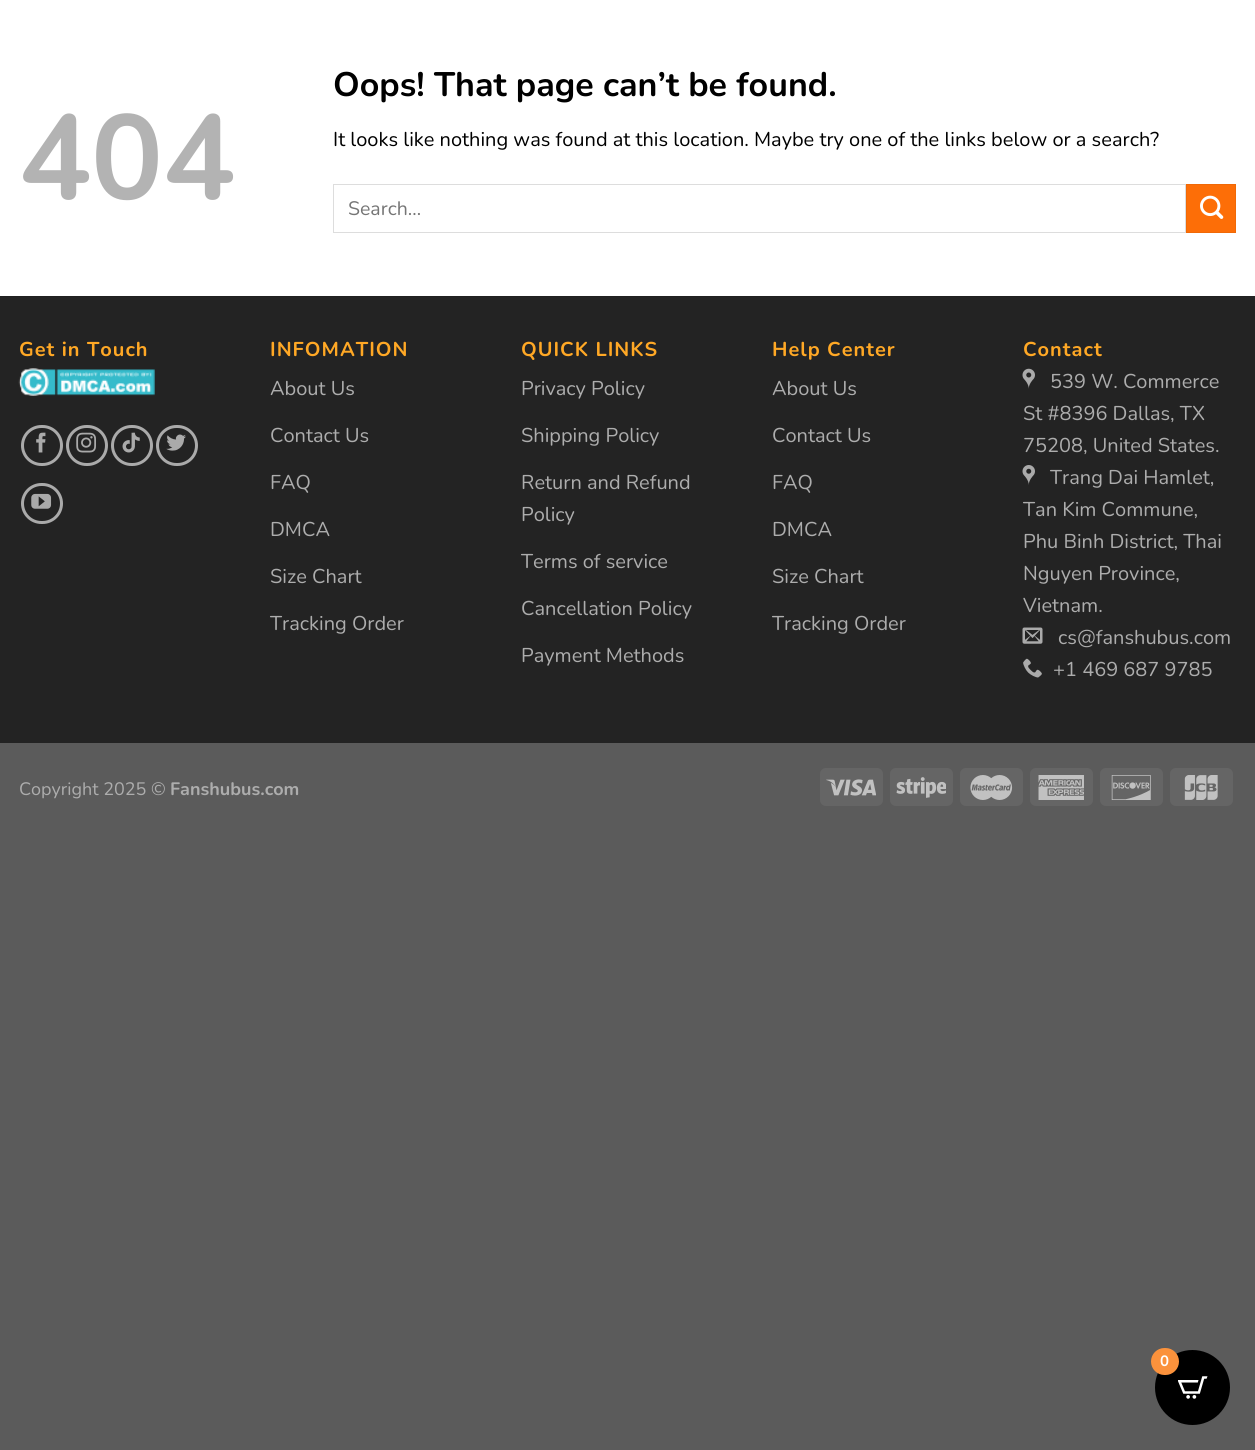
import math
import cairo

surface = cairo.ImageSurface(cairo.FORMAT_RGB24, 1255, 1450)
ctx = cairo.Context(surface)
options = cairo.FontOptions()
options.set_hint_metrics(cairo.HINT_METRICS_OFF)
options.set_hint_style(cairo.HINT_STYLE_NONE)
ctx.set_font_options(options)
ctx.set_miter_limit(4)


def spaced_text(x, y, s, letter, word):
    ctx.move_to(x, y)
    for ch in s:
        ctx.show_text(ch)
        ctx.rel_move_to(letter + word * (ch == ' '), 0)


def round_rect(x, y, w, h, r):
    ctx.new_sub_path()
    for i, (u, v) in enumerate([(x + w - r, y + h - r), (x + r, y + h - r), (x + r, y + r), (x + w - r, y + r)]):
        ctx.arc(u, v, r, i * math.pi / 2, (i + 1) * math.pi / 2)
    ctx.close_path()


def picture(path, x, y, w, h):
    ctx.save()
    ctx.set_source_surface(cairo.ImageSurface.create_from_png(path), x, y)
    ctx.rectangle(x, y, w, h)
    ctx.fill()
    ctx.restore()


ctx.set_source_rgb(0.357, 0.357, 0.357)
ctx.paint()
ctx.set_source_rgb(1, 1, 1)
ctx.rectangle(0, 0, 1255, 296)
ctx.fill()
ctx.select_font_face("Nunito", cairo.FONT_SLANT_NORMAL, cairo.FONT_WEIGHT_BOLD)
ctx.set_font_size(120)
ctx.set_source_rgb(0.702, 0.702, 0.702)
ctx.move_to(19, 199)
ctx.show_text("404")
ctx.set_font_size(34)
ctx.set_source_rgb(0, 0, 0)
ctx.move_to(333, 96)
ctx.show_text("Oops! That page can’t be found.")
ctx.select_font_face("Nunito")
ctx.set_font_size(20)
ctx.move_to(333, 146)
ctx.show_text("It looks like nothing was found at this location. Maybe try one of the links below or a search?")
ctx.rectangle(333.5, 184.5, 852, 48)
ctx.set_source_rgb(0.867, 0.867, 0.867)
ctx.set_line_width(1)
ctx.stroke()
ctx.set_font_size(19.5)
ctx.set_source_rgb(0.459, 0.459, 0.459)
ctx.move_to(348, 215)
ctx.show_text("Search…")
ctx.set_source_rgb(0.992, 0.431, 0.031)
ctx.rectangle(1186.5, 184.5, 49, 48)
ctx.fill_preserve()
ctx.set_source_rgb(0.941, 0.412, 0.031)
ctx.stroke()
picture("img1.png", 1200, 195, 24, 24)
ctx.set_source_rgb(0.137, 0.137, 0.137)
ctx.rectangle(0, 297, 1255, 446)
ctx.fill()
ctx.set_source_rgb(0.129, 0.129, 0.129)
ctx.rectangle(0, 296, 1255, 1)
ctx.fill()
ctx.select_font_face("Nunito", cairo.FONT_SLANT_NORMAL, cairo.FONT_WEIGHT_BOLD)
ctx.set_font_size(20)
ctx.set_source_rgb(1, 0.659, 0.145)
spaced_text(19, 356, "Get in Touch", 1, 0)
picture("img2.png", 18, 368, 137, 28)
round_rect(22.5, 426.5, 39, 38, 19)
ctx.set_source_rgb(0.667, 0.667, 0.667)
ctx.set_line_width(3)
ctx.stroke()
picture("img3.png", 36, 432, 10, 21)
round_rect(67.5, 426.5, 39, 38, 19)
ctx.stroke()
picture("img4.png", 76, 432, 20, 21)
round_rect(112.5, 426.5, 39, 38, 19)
ctx.stroke()
picture("img5.png", 122, 432, 18, 21)
round_rect(157.5, 426.5, 39, 38, 19)
ctx.stroke()
picture("img6.png", 166, 434, 20, 17)
round_rect(22.5, 484.5, 39, 38, 19)
ctx.stroke()
picture("img7.png", 31, 493, 21, 16)
ctx.set_source_rgb(1, 0.659, 0.145)
spaced_text(270, 356, "INFOMATION", 1, 0)
ctx.select_font_face("Nunito")
ctx.set_source_rgb(0.678, 0.678, 0.678)
ctx.move_to(270, 395)
ctx.show_text("About Us")
ctx.move_to(270, 442)
ctx.show_text("Contact Us")
ctx.move_to(270, 489)
ctx.show_text("FAQ")
ctx.move_to(270, 536)
ctx.show_text("DMCA")
ctx.move_to(270, 583)
ctx.show_text("Size Chart")
ctx.move_to(270, 630)
ctx.show_text("Tracking Order")
ctx.select_font_face("Nunito", cairo.FONT_SLANT_NORMAL, cairo.FONT_WEIGHT_BOLD)
ctx.set_source_rgb(1, 0.659, 0.145)
spaced_text(521, 356, "QUICK LINKS", 1, 0)
ctx.select_font_face("Nunito")
ctx.set_source_rgb(0.678, 0.678, 0.678)
ctx.move_to(521, 395)
ctx.show_text("Privacy Policy")
ctx.move_to(521, 442)
ctx.show_text("Shipping Policy")
ctx.move_to(521, 489)
ctx.show_text("Return and Refund")
ctx.move_to(521, 521)
ctx.show_text("Policy")
ctx.move_to(521, 568)
ctx.show_text("Terms of service")
ctx.move_to(521, 615)
ctx.show_text("Cancellation Policy")
ctx.move_to(521, 662)
ctx.show_text("Payment Methods")
ctx.select_font_face("Nunito", cairo.FONT_SLANT_NORMAL, cairo.FONT_WEIGHT_BOLD)
ctx.set_source_rgb(1, 0.659, 0.145)
spaced_text(772, 356, "Help Center", 1, 0)
ctx.select_font_face("Nunito")
ctx.set_source_rgb(0.678, 0.678, 0.678)
ctx.move_to(772, 395)
ctx.show_text("About Us")
ctx.move_to(772, 442)
ctx.show_text("Contact Us")
ctx.move_to(772, 489)
ctx.show_text("FAQ")
ctx.move_to(772, 536)
ctx.show_text("DMCA")
ctx.move_to(772, 583)
ctx.show_text("Size Chart")
ctx.move_to(772, 630)
ctx.show_text("Tracking Order")
ctx.select_font_face("Nunito", cairo.FONT_SLANT_NORMAL, cairo.FONT_WEIGHT_BOLD)
ctx.set_source_rgb(1, 0.659, 0.145)
spaced_text(1023, 356, "Contact", 1, 0)
picture("img8.png", 1022, 368, 13, 21)
ctx.select_font_face("Nunito")
ctx.set_source_rgb(0.678, 0.678, 0.678)
ctx.move_to(1050, 388)
ctx.show_text("539 W. Commerce")
ctx.move_to(1023, 420)
ctx.show_text("St #8396 Dallas, TX")
ctx.move_to(1023, 452)
ctx.show_text("75208, United States.")
picture("img9.png", 1022, 465, 13, 20)
ctx.move_to(1050, 484)
ctx.show_text("Trang Dai Hamlet,")
ctx.move_to(1023, 516)
ctx.show_text("Tan Kim Commune,")
ctx.move_to(1023, 548)
ctx.show_text("Phu Binh District, Thai")
ctx.move_to(1023, 580)
ctx.show_text("Nguyen Province,")
ctx.move_to(1023, 612)
ctx.show_text("Vietnam.")
picture("img10.png", 1022, 627, 21, 17)
ctx.move_to(1058, 644)
ctx.show_text("cs@fanshubus.com")
picture("img11.png", 1023, 658, 19, 20)
ctx.move_to(1053, 676)
ctx.show_text("+1 469 687 9785")
ctx.set_font_size(18)
ctx.move_to(19, 795)
ctx.show_text("Copyright 2025 ©")
ctx.select_font_face("Nunito", cairo.FONT_SLANT_NORMAL, cairo.FONT_WEIGHT_BOLD)
ctx.move_to(170, 795)
ctx.show_text("Fanshubus.com")
ctx.set_source_rgb(0.396, 0.396, 0.396)
round_rect(820, 768, 63, 38, 6)
ctx.fill()
picture("img12.png", 826, 779, 50, 17)
round_rect(890, 768, 63, 38, 6)
ctx.fill()
picture("img13.png", 896, 777, 50, 21)
round_rect(960, 768, 63, 38, 6)
ctx.fill()
picture("img14.png", 970, 775, 43, 25)
round_rect(1030, 768, 63, 38, 6)
ctx.fill()
picture("img15.png", 1038, 775, 46, 25)
round_rect(1100, 768, 63, 38, 6)
ctx.fill()
picture("img16.png", 1111, 775, 40, 25)
round_rect(1170, 768, 63, 38, 6)
ctx.fill()
picture("img17.png", 1184, 775, 34, 25)
ctx.set_source_rgb(0, 0, 0)
ctx.arc(1192.5, 1387.5, 37.5, 0, 2 * math.pi)
ctx.fill()
ctx.set_source_rgb(0.984, 0.573, 0.235)
round_rect(1151, 1348, 28, 27, 13.5)
ctx.fill()
ctx.set_font_size(15)
ctx.set_source_rgb(1, 1, 1)
spaced_text(1160, 1366, "0", 1, 0)
picture("img18.png", 1178, 1376, 30, 23)
surface.write_to_png("page.png")
